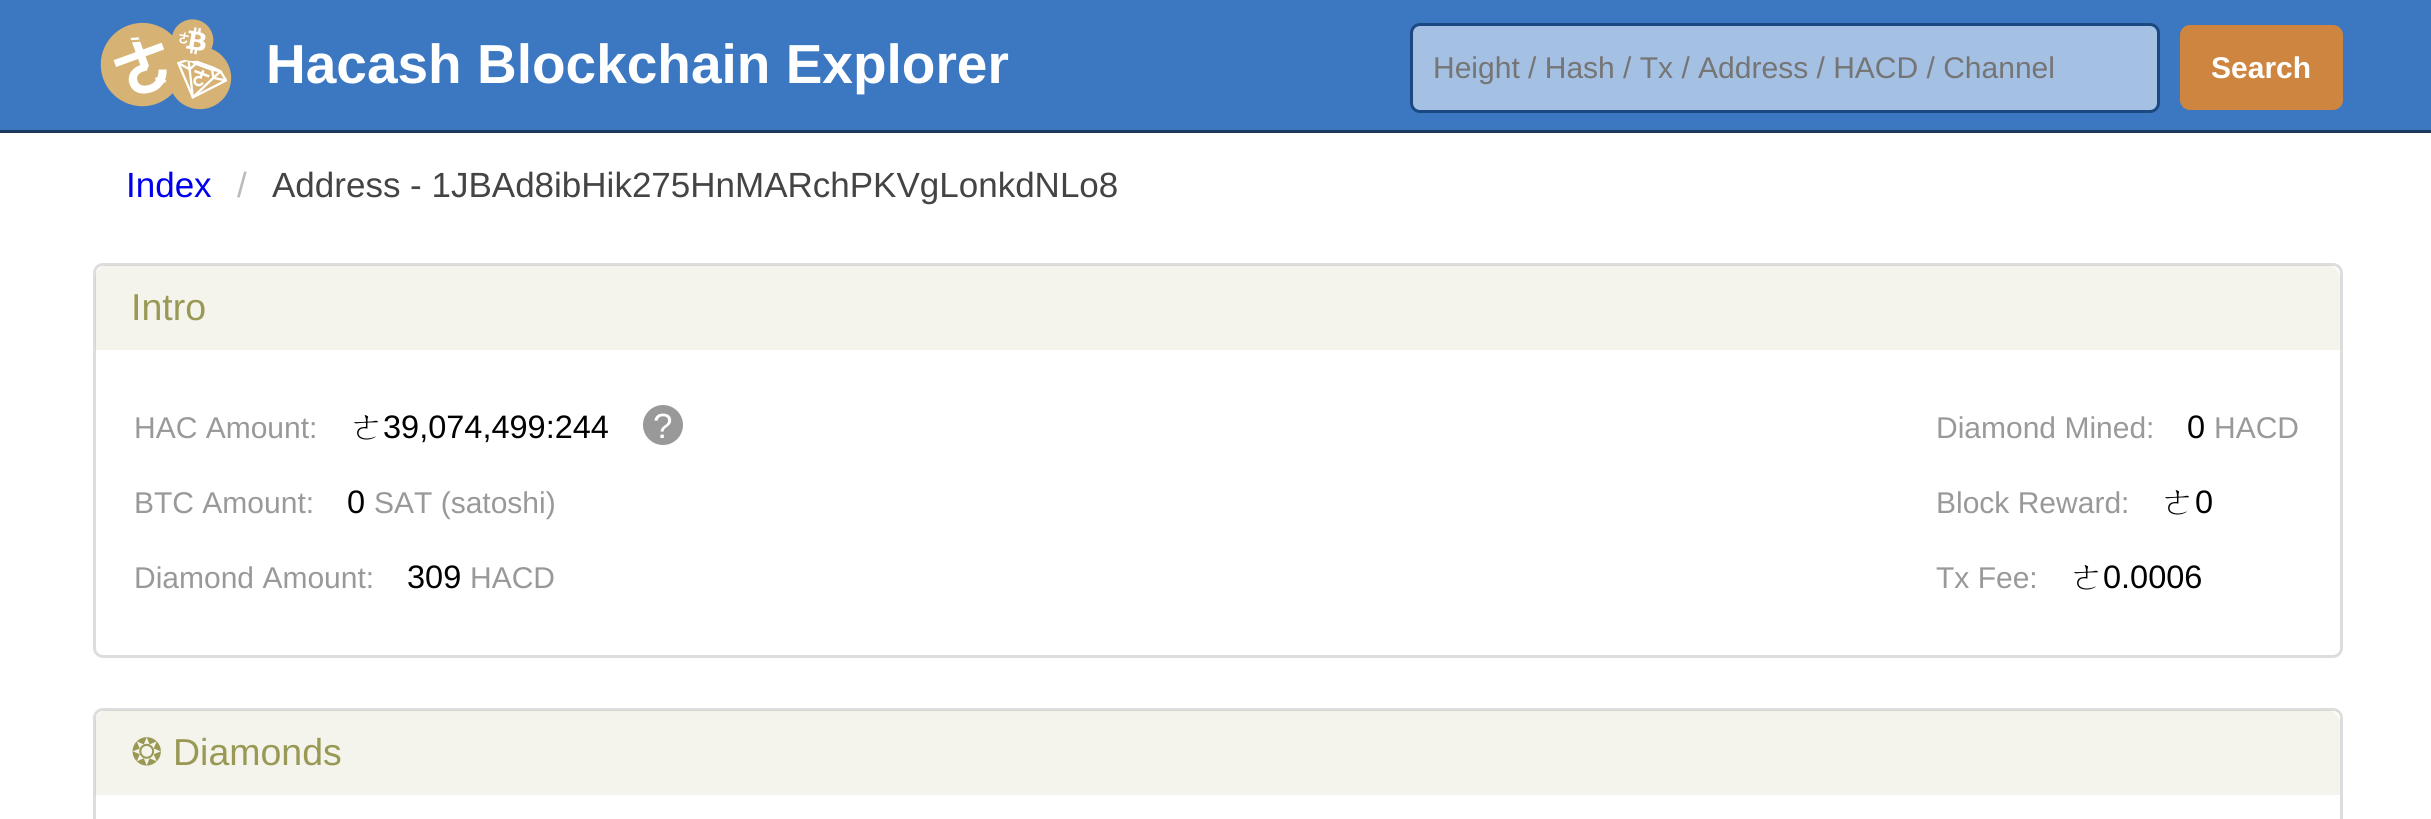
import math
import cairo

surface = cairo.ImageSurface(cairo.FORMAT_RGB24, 2431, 819)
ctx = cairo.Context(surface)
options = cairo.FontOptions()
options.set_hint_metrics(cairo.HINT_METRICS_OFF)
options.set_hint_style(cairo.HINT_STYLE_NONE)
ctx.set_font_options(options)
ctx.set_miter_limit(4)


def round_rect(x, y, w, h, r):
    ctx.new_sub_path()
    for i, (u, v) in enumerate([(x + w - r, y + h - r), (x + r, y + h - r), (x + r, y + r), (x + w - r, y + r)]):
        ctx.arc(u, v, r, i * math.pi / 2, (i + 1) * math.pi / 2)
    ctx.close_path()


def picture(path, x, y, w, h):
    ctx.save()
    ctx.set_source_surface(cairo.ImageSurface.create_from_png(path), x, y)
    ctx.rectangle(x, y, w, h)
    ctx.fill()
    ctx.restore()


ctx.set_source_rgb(1, 1, 1)
ctx.paint()
ctx.set_source_rgb(0.235, 0.471, 0.761)
ctx.rectangle(0, 0, 2431, 130)
ctx.fill()
picture("img1.png", 100, 22, 79, 85)
picture("img3.png", 172, 48, 60, 62)
picture("img2.png", 172, 19, 42, 42)
ctx.select_font_face("Liberation Sans", cairo.FONT_SLANT_NORMAL, cairo.FONT_WEIGHT_BOLD)
ctx.set_font_size(55)
ctx.set_source_rgb(1, 1, 1)
ctx.move_to(266, 83)
ctx.show_text("Hacash Blockchain Explorer")
ctx.set_source_rgb(0.643, 0.753, 0.89)
round_rect(1411.5, 24.5, 747, 87, 8.5)
ctx.fill_preserve()
ctx.set_source_rgb(0.11, 0.282, 0.51)
ctx.set_line_width(3)
ctx.stroke()
ctx.select_font_face("Liberation Sans")
ctx.set_font_size(30)
ctx.set_source_rgb(0.459, 0.459, 0.459)
ctx.move_to(1433, 78)
ctx.show_text("Height / Hash / Tx / Address / HACD / Channel")
ctx.set_source_rgb(0.804, 0.522, 0.247)
round_rect(2180, 25, 163, 85, 10)
ctx.fill()
ctx.select_font_face("Liberation Sans", cairo.FONT_SLANT_NORMAL, cairo.FONT_WEIGHT_BOLD)
ctx.set_source_rgb(1, 1, 1)
ctx.move_to(2211, 78)
ctx.show_text("Search")
ctx.set_source_rgb(0.11, 0.22, 0.357)
ctx.rectangle(0, 130, 2431, 3)
ctx.fill()
ctx.select_font_face("Liberation Sans")
ctx.set_font_size(35)
ctx.set_source_rgb(0, 0, 0.933)
ctx.move_to(126, 197)
ctx.show_text("Index")
ctx.set_source_rgb(0.733, 0.733, 0.733)
ctx.move_to(237, 197)
ctx.show_text("/")
ctx.set_source_rgb(0.267, 0.267, 0.267)
ctx.move_to(272, 197)
ctx.show_text("Address - 1JBAd8ibHik275HnMARchPKVgLonkdNLo8")
round_rect(94.5, 264.5, 2247, 392, 8.5)
ctx.set_source_rgb(0.867, 0.867, 0.867)
ctx.stroke()
ctx.set_source_rgba(0.686, 0.686, 0.424, 0.13)
ctx.new_path()
ctx.move_to(108, 265)
ctx.line_to(2327, 265)
ctx.curve_to(2334, 265, 2340, 271, 2340, 278)
ctx.line_to(2340, 350)
ctx.line_to(95, 350)
ctx.line_to(95, 278)
ctx.curve_to(95, 271, 101, 265, 108, 265)
ctx.close_path()
ctx.fill()
ctx.set_font_size(37.5)
ctx.set_source_rgb(0.6, 0.6, 0.333)
ctx.move_to(131, 320)
ctx.show_text("Intro")
ctx.set_font_size(30)
ctx.set_source_rgb(0.6, 0.6, 0.6)
ctx.move_to(134, 438)
ctx.show_text("HAC Amount:")
ctx.select_font_face("WenQuanYi Zen Hei Medium")
ctx.set_font_size(32.5)
ctx.set_source_rgb(0, 0, 0)
ctx.move_to(351, 438)
ctx.show_text("ㄜ")
ctx.select_font_face("Liberation Sans")
ctx.move_to(383, 438)
ctx.show_text("39,074,499:244")
ctx.set_source_rgb(0.6, 0.6, 0.6)
ctx.new_path()
ctx.arc(663, 425, 20, 0, 2 * math.pi)
ctx.fill()
ctx.set_font_size(35)
ctx.set_source_rgb(1, 1, 1)
ctx.move_to(653, 438)
ctx.show_text("?")
ctx.set_font_size(30)
ctx.set_source_rgb(0.6, 0.6, 0.6)
ctx.move_to(134, 513)
ctx.show_text("BTC Amount:")
ctx.set_font_size(32.5)
ctx.set_source_rgb(0, 0, 0)
ctx.move_to(347, 513)
ctx.show_text("0")
ctx.set_font_size(30)
ctx.set_source_rgb(0.6, 0.6, 0.6)
ctx.move_to(374, 513)
ctx.show_text("SAT (satoshi)")
ctx.move_to(134, 588)
ctx.show_text("Diamond Amount:")
ctx.set_font_size(32.5)
ctx.set_source_rgb(0, 0, 0)
ctx.move_to(407, 588)
ctx.show_text("309")
ctx.set_font_size(30)
ctx.set_source_rgb(0.6, 0.6, 0.6)
ctx.move_to(470, 588)
ctx.show_text("HACD")
ctx.move_to(1936, 438)
ctx.show_text("Diamond Mined:")
ctx.set_font_size(32.5)
ctx.set_source_rgb(0, 0, 0)
ctx.move_to(2187, 438)
ctx.show_text("0")
ctx.set_font_size(30)
ctx.set_source_rgb(0.6, 0.6, 0.6)
ctx.move_to(2214, 438)
ctx.show_text("HACD")
ctx.move_to(1936, 513)
ctx.show_text("Block Reward:")
ctx.select_font_face("WenQuanYi Zen Hei Medium")
ctx.set_font_size(32.5)
ctx.set_source_rgb(0, 0, 0)
ctx.move_to(2162, 513)
ctx.show_text("ㄜ")
ctx.select_font_face("Liberation Sans")
ctx.move_to(2195, 513)
ctx.show_text("0")
ctx.set_font_size(30)
ctx.set_source_rgb(0.6, 0.6, 0.6)
ctx.move_to(1936, 588)
ctx.show_text("Tx Fee:")
ctx.select_font_face("WenQuanYi Zen Hei Medium")
ctx.set_font_size(32.5)
ctx.set_source_rgb(0, 0, 0)
ctx.move_to(2071, 588)
ctx.show_text("ㄜ")
ctx.select_font_face("Liberation Sans")
ctx.move_to(2103, 588)
ctx.show_text("0.0006")
round_rect(94.5, 709.5, 2247, 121, 8.5)
ctx.set_source_rgb(0.867, 0.867, 0.867)
ctx.stroke()
ctx.set_source_rgba(0.686, 0.686, 0.424, 0.13)
ctx.new_path()
ctx.move_to(108, 710)
ctx.line_to(2327, 710)
ctx.curve_to(2334, 710, 2340, 716, 2340, 723)
ctx.line_to(2340, 795)
ctx.line_to(95, 795)
ctx.line_to(95, 723)
ctx.curve_to(95, 716, 101, 710, 108, 710)
ctx.close_path()
ctx.fill()
ctx.select_font_face("DejaVu Sans")
ctx.set_font_size(37.5)
ctx.set_source_rgb(0.6, 0.6, 0.333)
ctx.move_to(131, 765)
ctx.show_text("❂")
ctx.select_font_face("Liberation Sans")
ctx.move_to(173, 765)
ctx.show_text("Diamonds")
surface.write_to_png("page.png")
